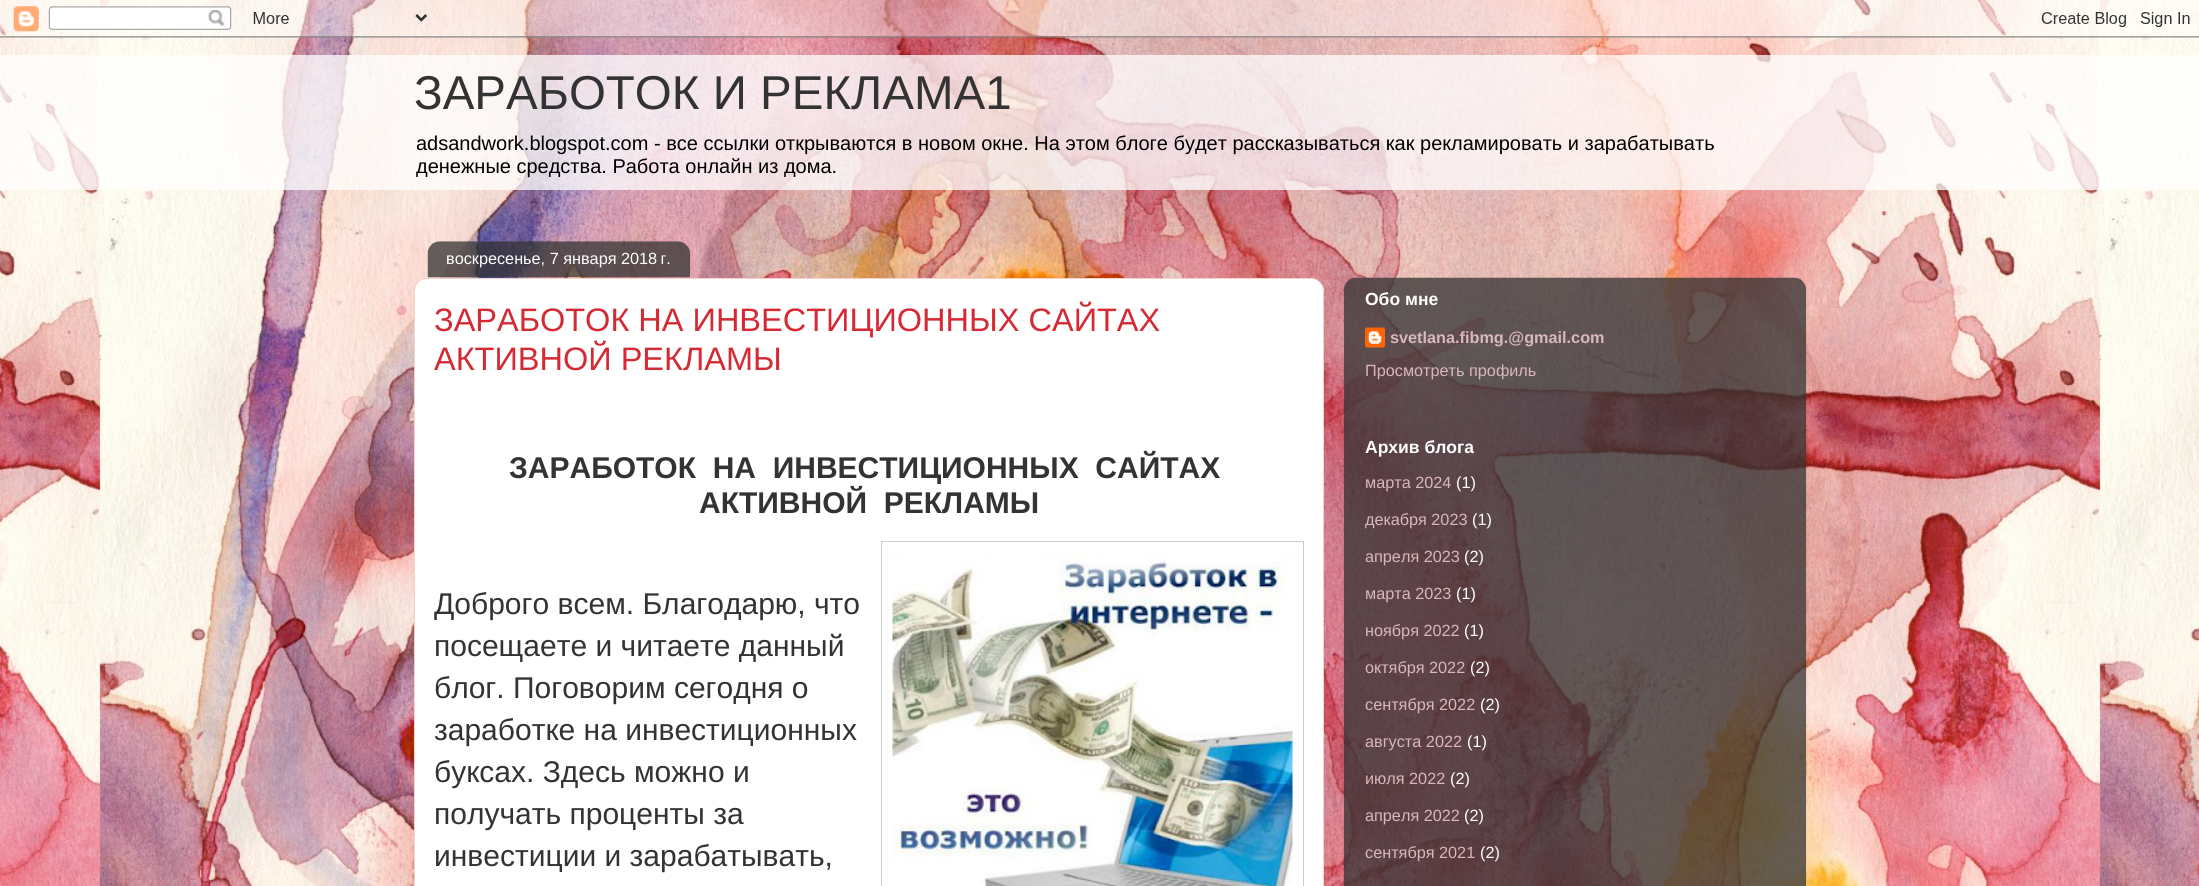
import math
import cairo

surface = cairo.ImageSurface(cairo.FORMAT_RGB24, 2199, 886)
ctx = cairo.Context(surface)
options = cairo.FontOptions()
options.set_hint_metrics(cairo.HINT_METRICS_OFF)
options.set_hint_style(cairo.HINT_STYLE_NONE)
ctx.set_font_options(options)
ctx.set_miter_limit(4)


def picture(path, x, y, w, h):
    ctx.save()
    ctx.set_source_surface(cairo.ImageSurface.create_from_png(path), x, y)
    ctx.rectangle(x, y, w, h)
    ctx.fill()
    ctx.restore()


ctx.set_source_rgb(1, 1, 1)
ctx.paint()
picture("img1.png", 0, 0, 2199, 886)
picture("img2.png", 0, 0, 2199, 38)
ctx.set_source_rgba(1, 1, 1, 0.75)
ctx.rectangle(0, 55, 2199, 135)
ctx.fill()
ctx.select_font_face("Liberation Sans")
ctx.set_font_size(47.5)
ctx.set_source_rgb(0.2, 0.2, 0.2)
ctx.move_to(414, 109)
ctx.show_text("ЗАРАБОТОК И РЕКЛАМА1")
ctx.set_font_size(20)
ctx.set_source_rgb(0, 0, 0)
ctx.move_to(416, 150)
ctx.show_text("adsandwork.blogspot.com - все ссылки открываются в новом окне. На этом блоге будет рассказываться как рекламировать и зарабатывать")
ctx.move_to(416, 173)
ctx.show_text("денежные средства. Работа онлайн из дома.")
ctx.set_source_rgb(1, 1, 1)
ctx.new_path()
ctx.move_to(427, 278.5)
ctx.line_to(1311, 278.5)
ctx.curve_to(1318, 278.5, 1323.5, 284, 1323.5, 291)
ctx.line_to(1323.5, 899.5)
ctx.line_to(414.5, 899.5)
ctx.line_to(414.5, 291)
ctx.curve_to(414.5, 284, 420, 278.5, 427, 278.5)
ctx.close_path()
ctx.fill_preserve()
ctx.set_source_rgb(0.957, 0.827, 0.8)
ctx.set_line_width(1)
ctx.stroke()
picture("img3.png", 427, 241, 263, 37)
ctx.set_font_size(16.25)
ctx.set_source_rgb(1, 1, 1)
ctx.move_to(446, 264)
ctx.show_text("воскресенье, 7 января 2018 г.")
ctx.set_font_size(32.5)
ctx.set_source_rgb(0.835, 0.165, 0.2)
ctx.move_to(434, 331)
ctx.show_text("ЗАРАБОТОК НА ИНВЕСТИЦИОННЫХ САЙТАХ")
ctx.move_to(434, 370)
ctx.show_text("АКТИВНОЙ РЕКЛАМЫ")
ctx.select_font_face("Liberation Sans", cairo.FONT_SLANT_NORMAL, cairo.FONT_WEIGHT_BOLD)
ctx.set_font_size(30)
ctx.set_source_rgb(0.2, 0.2, 0.2)
ctx.move_to(509, 478)
ctx.show_text("ЗАРАБОТОК  НА  ИНВЕСТИЦИОННЫХ  САЙТАХ")
ctx.move_to(699, 513)
ctx.show_text("АКТИВНОЙ  РЕКЛАМЫ")
ctx.select_font_face("Liberation Sans")
ctx.move_to(434, 614)
ctx.show_text("Доброго всем. Благодарю, что")
ctx.move_to(434, 656)
ctx.show_text("посещаете и читаете данный")
ctx.move_to(434, 698)
ctx.show_text("блог. Поговорим сегодня о")
ctx.move_to(434, 740)
ctx.show_text("заработке на инвестиционных")
ctx.move_to(434, 782)
ctx.show_text("буксах. Здесь можно и")
ctx.move_to(434, 824)
ctx.show_text("получать проценты за")
ctx.move_to(434, 866)
ctx.show_text("инвестиции и зарабатывать,")
ctx.rectangle(881.5, 541.5, 422, 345)
ctx.set_source_rgb(0.8, 0.8, 0.8)
ctx.stroke()
picture("img4.png", 892, 552, 401, 334)
picture("img5.png", 1343, 277, 464, 609)
ctx.select_font_face("Liberation Sans", cairo.FONT_SLANT_NORMAL, cairo.FONT_WEIGHT_BOLD)
ctx.set_font_size(17.5)
ctx.set_source_rgb(1, 1, 1)
ctx.move_to(1365, 305)
ctx.show_text("Обо мне")
picture("img6.png", 1365, 327, 20, 21)
ctx.set_font_size(16.25)
ctx.set_source_rgb(0.855, 0.718, 0.737)
ctx.move_to(1390, 343)
ctx.show_text("svetlana.fibmg.@gmail.com")
ctx.select_font_face("Liberation Sans")
ctx.move_to(1365, 376)
ctx.show_text("Просмотреть профиль")
ctx.select_font_face("Liberation Sans", cairo.FONT_SLANT_NORMAL, cairo.FONT_WEIGHT_BOLD)
ctx.set_font_size(17.5)
ctx.set_source_rgb(1, 1, 1)
ctx.move_to(1365, 453)
ctx.show_text("Архив блога")
ctx.select_font_face("Liberation Sans")
ctx.set_font_size(16.25)
ctx.set_source_rgb(0.855, 0.718, 0.737)
ctx.move_to(1365, 488)
ctx.show_text("марта 2024")
ctx.set_source_rgb(1, 1, 1)
ctx.move_to(1456, 488)
ctx.show_text("(1)")
ctx.set_source_rgb(0.855, 0.718, 0.737)
ctx.move_to(1365, 525)
ctx.show_text("декабря 2023")
ctx.set_source_rgb(1, 1, 1)
ctx.move_to(1472, 525)
ctx.show_text("(1)")
ctx.set_source_rgb(0.855, 0.718, 0.737)
ctx.move_to(1365, 562)
ctx.show_text("апреля 2023")
ctx.set_source_rgb(1, 1, 1)
ctx.move_to(1464, 562)
ctx.show_text("(2)")
ctx.set_source_rgb(0.855, 0.718, 0.737)
ctx.move_to(1365, 599)
ctx.show_text("марта 2023")
ctx.set_source_rgb(1, 1, 1)
ctx.move_to(1456, 599)
ctx.show_text("(1)")
ctx.set_source_rgb(0.855, 0.718, 0.737)
ctx.move_to(1365, 636)
ctx.show_text("ноября 2022")
ctx.set_source_rgb(1, 1, 1)
ctx.move_to(1464, 636)
ctx.show_text("(1)")
ctx.set_source_rgb(0.855, 0.718, 0.737)
ctx.move_to(1365, 673)
ctx.show_text("октября 2022")
ctx.set_source_rgb(1, 1, 1)
ctx.move_to(1470, 673)
ctx.show_text("(2)")
ctx.set_source_rgb(0.855, 0.718, 0.737)
ctx.move_to(1365, 710)
ctx.show_text("сентября 2022")
ctx.set_source_rgb(1, 1, 1)
ctx.move_to(1480, 710)
ctx.show_text("(2)")
ctx.set_source_rgb(0.855, 0.718, 0.737)
ctx.move_to(1365, 747)
ctx.show_text("августа 2022")
ctx.set_source_rgb(1, 1, 1)
ctx.move_to(1467, 747)
ctx.show_text("(1)")
ctx.set_source_rgb(0.855, 0.718, 0.737)
ctx.move_to(1365, 784)
ctx.show_text("июля 2022")
ctx.set_source_rgb(1, 1, 1)
ctx.move_to(1450, 784)
ctx.show_text("(2)")
ctx.set_source_rgb(0.855, 0.718, 0.737)
ctx.move_to(1365, 821)
ctx.show_text("апреля 2022")
ctx.set_source_rgb(1, 1, 1)
ctx.move_to(1464, 821)
ctx.show_text("(2)")
ctx.set_source_rgb(0.855, 0.718, 0.737)
ctx.move_to(1365, 858)
ctx.show_text("сентября 2021")
ctx.set_source_rgb(1, 1, 1)
ctx.move_to(1480, 858)
ctx.show_text("(2)")
surface.write_to_png("page.png")
